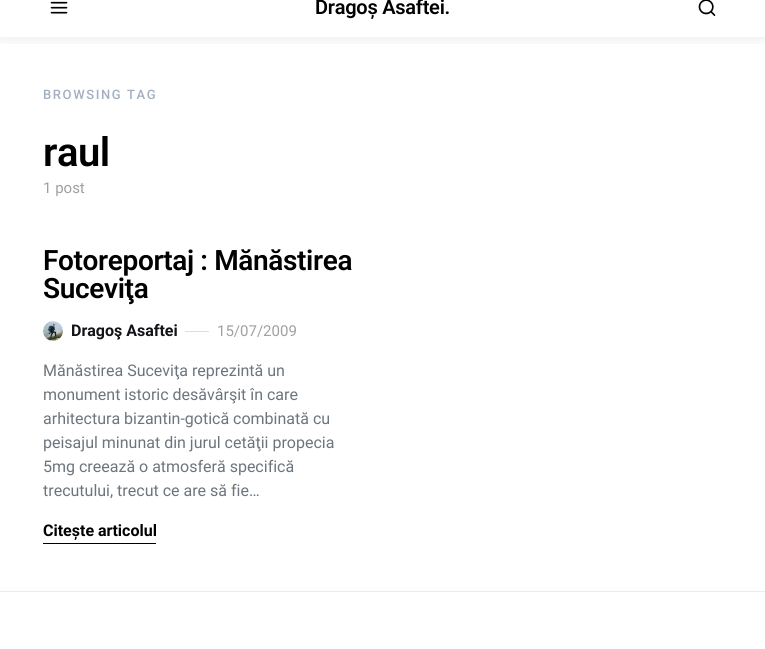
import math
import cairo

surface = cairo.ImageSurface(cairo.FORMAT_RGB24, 765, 649)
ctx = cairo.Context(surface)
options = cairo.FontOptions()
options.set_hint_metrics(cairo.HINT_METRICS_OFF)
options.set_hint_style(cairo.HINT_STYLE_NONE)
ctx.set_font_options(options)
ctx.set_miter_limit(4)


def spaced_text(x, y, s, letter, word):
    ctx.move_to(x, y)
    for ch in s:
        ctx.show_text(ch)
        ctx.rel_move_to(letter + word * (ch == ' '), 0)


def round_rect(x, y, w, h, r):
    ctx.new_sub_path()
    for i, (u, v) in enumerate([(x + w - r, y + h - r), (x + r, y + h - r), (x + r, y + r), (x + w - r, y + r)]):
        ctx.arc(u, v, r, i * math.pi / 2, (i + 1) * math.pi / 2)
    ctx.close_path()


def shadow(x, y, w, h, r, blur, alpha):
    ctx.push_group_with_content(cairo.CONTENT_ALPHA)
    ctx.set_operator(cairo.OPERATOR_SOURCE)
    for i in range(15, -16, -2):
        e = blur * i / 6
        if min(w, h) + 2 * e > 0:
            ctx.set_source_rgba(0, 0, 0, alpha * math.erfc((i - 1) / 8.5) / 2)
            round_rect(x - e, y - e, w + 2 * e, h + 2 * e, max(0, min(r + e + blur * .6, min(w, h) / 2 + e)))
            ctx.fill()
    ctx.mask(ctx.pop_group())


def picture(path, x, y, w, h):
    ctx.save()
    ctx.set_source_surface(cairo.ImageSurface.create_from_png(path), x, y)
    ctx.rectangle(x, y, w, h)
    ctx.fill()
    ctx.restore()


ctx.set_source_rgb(1, 1, 1)
ctx.paint()
ctx.save()
ctx.rectangle(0, 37, 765, 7)
ctx.clip()
ctx.set_source_rgb(0, 0, 0)
shadow(0, -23, 765, 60, 0, 8, 0.1)
ctx.restore()
picture("img1.png", 50, 1, 18, 13)
ctx.select_font_face("Roboto SemiBold")
ctx.set_font_size(20)
ctx.set_source_rgb(0, 0, 0)
spaced_text(315, 14, "Dragoș Asaftei.", -0.25, 0)
picture("img2.png", 698, 0, 18, 16)
ctx.select_font_face("Roboto Medium")
ctx.set_font_size(13)
ctx.set_source_rgb(0.635, 0.69, 0.749)
spaced_text(43, 99, "BROWSING TAG", 1.6, 0)
ctx.select_font_face("Roboto SemiBold")
ctx.set_font_size(40)
ctx.set_source_rgb(0, 0, 0)
spaced_text(43, 166, "raul", -0.5, 0)
ctx.select_font_face("Roboto")
ctx.set_font_size(15)
ctx.set_source_rgb(0.627, 0.627, 0.627)
ctx.move_to(43, 193)
ctx.show_text("1 post")
ctx.select_font_face("Roboto SemiBold")
ctx.set_font_size(28)
ctx.set_source_rgb(0, 0, 0)
spaced_text(43, 270, "Fotoreportaj : Mănăstirea", -0.35, 0)
spaced_text(43, 298, "Suceviţa", -0.35, 0)
picture("img3.png", 43, 321, 20, 20)
ctx.select_font_face("Roboto", cairo.FONT_SLANT_NORMAL, cairo.FONT_WEIGHT_BOLD)
ctx.set_font_size(16)
ctx.set_source_rgb(0.071, 0.078, 0.086)
ctx.move_to(71, 336)
ctx.show_text("Dragoş Asaftei")
ctx.set_source_rgb(0.855, 0.875, 0.89)
ctx.rectangle(185, 331, 24, 1)
ctx.fill()
ctx.select_font_face("Roboto")
ctx.set_font_size(15)
ctx.set_source_rgb(0.627, 0.627, 0.627)
ctx.move_to(217, 336)
ctx.show_text("15/07/2009")
ctx.set_font_size(16)
ctx.set_source_rgb(0.424, 0.459, 0.49)
ctx.move_to(43, 376)
ctx.show_text("Mănăstirea Suceviţa reprezintă un")
ctx.move_to(43, 400)
ctx.show_text("monument istoric desăvârşit în care")
ctx.move_to(43, 424)
ctx.show_text("arhitectura bizantin-gotică combinată cu")
ctx.move_to(43, 448)
ctx.show_text("peisajul minunat din jurul cetăţii propecia")
ctx.move_to(43, 472)
ctx.show_text("5mg creează o atmosferă specifică")
ctx.move_to(43, 496)
ctx.show_text("trecutului, trecut ce are să fie…")
ctx.select_font_face("Roboto", cairo.FONT_SLANT_NORMAL, cairo.FONT_WEIGHT_BOLD)
ctx.set_source_rgb(0, 0, 0)
ctx.move_to(43, 536)
ctx.show_text("Citește articolul")
ctx.rectangle(43, 543, 113, 1)
ctx.fill()
ctx.set_source_rgb(0.914, 0.925, 0.937)
ctx.rectangle(0, 591, 765, 1)
ctx.fill()
surface.write_to_png("page.png")
